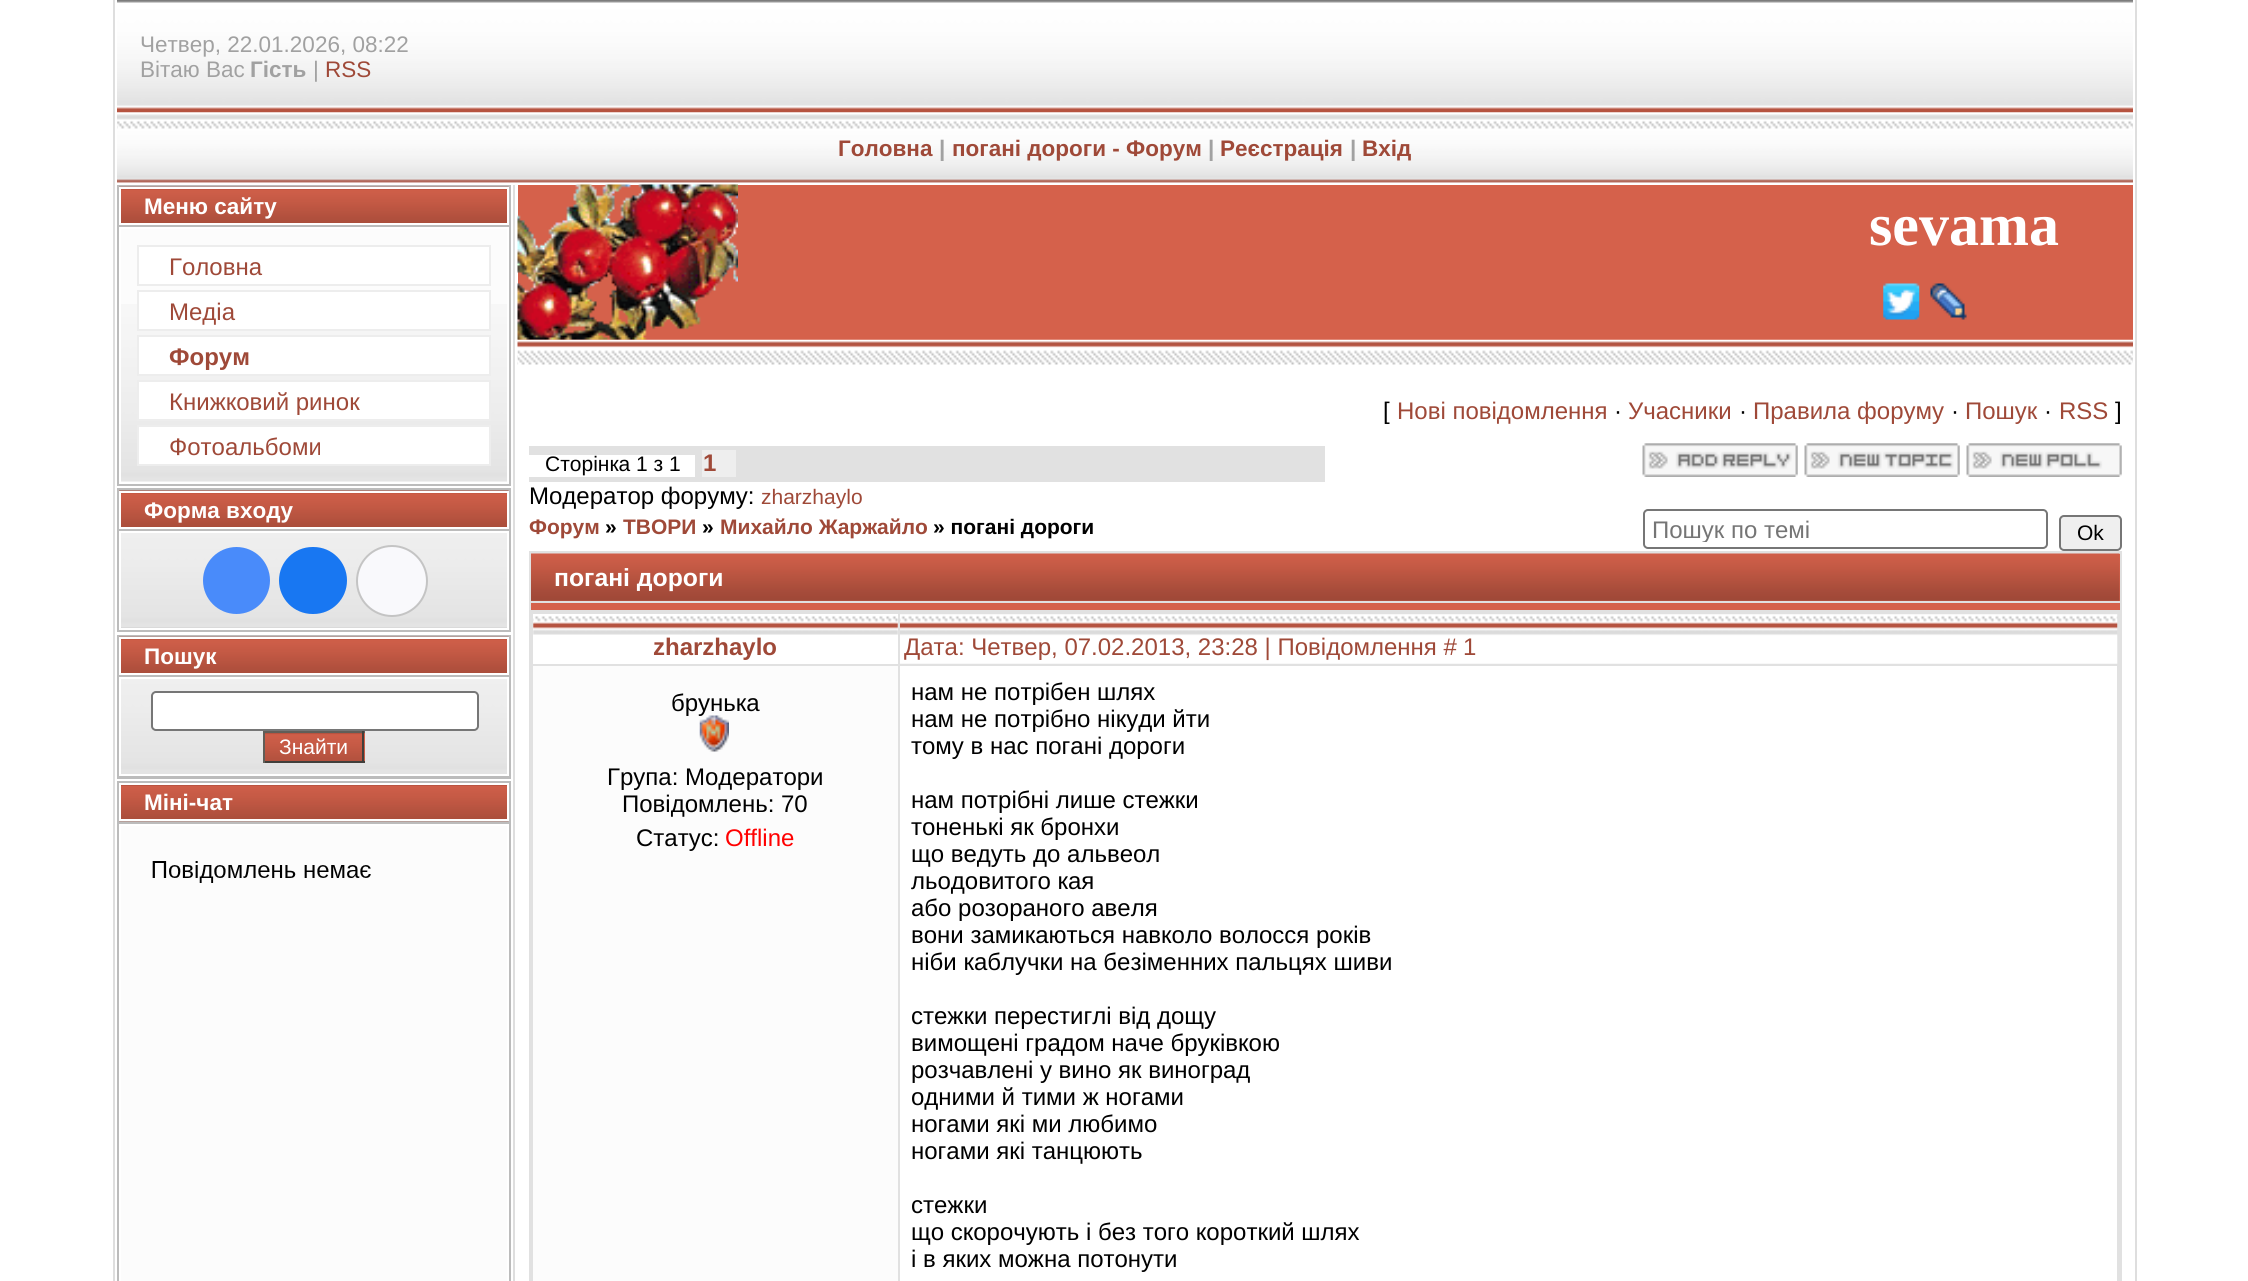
import math
import cairo

surface = cairo.ImageSurface(cairo.FORMAT_RGB24, 2248, 1281)
ctx = cairo.Context(surface)
options = cairo.FontOptions()
options.set_hint_metrics(cairo.HINT_METRICS_OFF)
options.set_hint_style(cairo.HINT_STYLE_NONE)
ctx.set_font_options(options)
ctx.set_miter_limit(4)


def round_rect(x, y, w, h, r):
    ctx.new_sub_path()
    for i, (u, v) in enumerate([(x + w - r, y + h - r), (x + r, y + h - r), (x + r, y + r), (x + w - r, y + r)]):
        ctx.arc(u, v, r, i * math.pi / 2, (i + 1) * math.pi / 2)
    ctx.close_path()


def picture(path, x, y, w, h):
    ctx.save()
    ctx.set_source_surface(cairo.ImageSurface.create_from_png(path), x, y)
    ctx.rectangle(x, y, w, h)
    ctx.fill()
    ctx.restore()


ctx.set_source_rgb(1, 1, 1)
ctx.paint()
ctx.set_source_rgb(0.871, 0.871, 0.871)
ctx.rectangle(2135, 0, 2, 1281)
ctx.fill()
ctx.rectangle(113, 0, 2, 1281)
ctx.fill()
picture("img1.png", 117, 0, 2016, 113)
ctx.select_font_face("Liberation Sans")
ctx.set_font_size(22.5)
ctx.set_source_rgb(0.631, 0.631, 0.631)
ctx.move_to(140, 52)
ctx.show_text("Четвер, 22.01.2026, 08:22")
ctx.move_to(140, 77)
ctx.show_text("Вітаю Вас")
ctx.select_font_face("Liberation Sans", cairo.FONT_SLANT_NORMAL, cairo.FONT_WEIGHT_BOLD)
ctx.move_to(250, 77)
ctx.show_text("Гість")
ctx.select_font_face("Liberation Sans")
ctx.move_to(313, 77)
ctx.show_text("|")
ctx.set_source_rgb(0.624, 0.286, 0.22)
ctx.move_to(325, 77)
ctx.show_text("RSS")
picture("img2.png", 117, 112, 2016, 71)
ctx.select_font_face("Liberation Sans", cairo.FONT_SLANT_NORMAL, cairo.FONT_WEIGHT_BOLD)
ctx.move_to(838, 156)
ctx.show_text("Головна")
ctx.set_source_rgb(0.631, 0.631, 0.631)
ctx.move_to(939, 156)
ctx.show_text("|")
ctx.set_source_rgb(0.624, 0.286, 0.22)
ctx.move_to(952, 156)
ctx.show_text("погані дороги - Форум")
ctx.set_source_rgb(0.631, 0.631, 0.631)
ctx.move_to(1208, 156)
ctx.show_text("|")
ctx.set_source_rgb(0.624, 0.286, 0.22)
ctx.move_to(1220, 156)
ctx.show_text("Реєстрація")
ctx.set_source_rgb(0.631, 0.631, 0.631)
ctx.move_to(1350, 156)
ctx.show_text("|")
ctx.set_source_rgb(0.624, 0.286, 0.22)
ctx.move_to(1362, 156)
ctx.show_text("Вхід")
ctx.set_source_rgb(0.737, 0.737, 0.737)
ctx.rectangle(117, 185, 394, 301)
ctx.fill()
picture("img3.png", 119, 186, 390, 37)
ctx.rectangle(120, 188, 388, 36)
ctx.set_source_rgb(1, 1, 1)
ctx.stroke()
ctx.move_to(144, 214)
ctx.show_text("Меню сайту")
ctx.set_source_rgb(0.988, 0.988, 0.988)
ctx.rectangle(121, 229, 386, 253)
ctx.fill()
picture("img4.png", 121, 304, 386, 178)
ctx.rectangle(120, 228, 388, 255)
ctx.set_source_rgb(1, 1, 1)
ctx.stroke()
ctx.rectangle(138, 246, 352, 39)
ctx.fill_preserve()
ctx.set_source_rgb(0.929, 0.929, 0.929)
ctx.stroke()
ctx.select_font_face("Liberation Sans")
ctx.set_font_size(24)
ctx.set_source_rgb(0.624, 0.286, 0.22)
ctx.move_to(169, 275)
ctx.show_text("Головна")
ctx.set_source_rgb(1, 1, 1)
ctx.rectangle(138, 291, 352, 39)
ctx.fill_preserve()
ctx.set_source_rgb(0.929, 0.929, 0.929)
ctx.stroke()
ctx.set_source_rgb(0.624, 0.286, 0.22)
ctx.move_to(169, 320)
ctx.show_text("Медіа")
ctx.set_source_rgb(1, 1, 1)
ctx.rectangle(138, 336, 352, 39)
ctx.fill_preserve()
ctx.set_source_rgb(0.929, 0.929, 0.929)
ctx.stroke()
ctx.select_font_face("Liberation Sans", cairo.FONT_SLANT_NORMAL, cairo.FONT_WEIGHT_BOLD)
ctx.set_source_rgb(0.624, 0.286, 0.22)
ctx.move_to(169, 365)
ctx.show_text("Форум")
ctx.set_source_rgb(1, 1, 1)
ctx.rectangle(138, 381, 352, 39)
ctx.fill_preserve()
ctx.set_source_rgb(0.929, 0.929, 0.929)
ctx.stroke()
ctx.select_font_face("Liberation Sans")
ctx.set_source_rgb(0.624, 0.286, 0.22)
ctx.move_to(169, 410)
ctx.show_text("Книжковий ринок")
ctx.set_source_rgb(1, 1, 1)
ctx.rectangle(138, 426, 352, 39)
ctx.fill_preserve()
ctx.set_source_rgb(0.929, 0.929, 0.929)
ctx.stroke()
ctx.set_source_rgb(0.624, 0.286, 0.22)
ctx.move_to(169, 455)
ctx.show_text("Фотоальбоми")
ctx.set_source_rgb(0.737, 0.737, 0.737)
ctx.rectangle(117, 488, 394, 144)
ctx.fill()
picture("img5.png", 119, 490, 390, 37)
ctx.rectangle(120, 492, 388, 36)
ctx.set_source_rgb(1, 1, 1)
ctx.stroke()
ctx.select_font_face("Liberation Sans", cairo.FONT_SLANT_NORMAL, cairo.FONT_WEIGHT_BOLD)
ctx.set_font_size(22.5)
ctx.move_to(144, 518)
ctx.show_text("Форма входу")
picture("img6.png", 121, 533, 386, 95)
ctx.rectangle(120, 532, 388, 97)
ctx.stroke()
ctx.set_source_rgb(0.286, 0.545, 0.98)
ctx.arc(236.5, 580.5, 33.5, 0, 2 * math.pi)
ctx.fill()
ctx.set_source_rgb(0.094, 0.467, 0.949)
round_rect(279, 547, 68, 67, 33.5)
ctx.fill()
ctx.set_source_rgb(0.973, 0.973, 0.988)
ctx.arc(392, 581, 35, 0, 2 * math.pi)
ctx.fill_preserve()
ctx.set_source_rgb(0.769, 0.769, 0.769)
ctx.stroke()
ctx.set_source_rgb(0.737, 0.737, 0.737)
ctx.rectangle(117, 635, 394, 144)
ctx.fill()
picture("img3.png", 119, 636, 390, 37)
ctx.rectangle(120, 638, 388, 36)
ctx.set_source_rgb(1, 1, 1)
ctx.stroke()
ctx.move_to(144, 664)
ctx.show_text("Пошук")
picture("img7.png", 121, 679, 386, 95)
ctx.rectangle(120, 678, 388, 97)
ctx.stroke()
round_rect(152, 692, 326, 38, 4)
ctx.fill_preserve()
ctx.set_source_rgb(0.463, 0.463, 0.463)
ctx.stroke()
ctx.set_source_rgb(0.835, 0.38, 0.294)
ctx.rectangle(364, 733, 1, 28)
ctx.fill()
picture("img8.png", 265, 733, 100, 28)
ctx.set_source_rgb(0.38, 0.369, 0.345)
ctx.rectangle(263, 731, 102, 2)
ctx.fill()
ctx.set_source_rgb(0.255, 0.247, 0.231)
ctx.rectangle(362, 731, 2, 32)
ctx.fill()
ctx.rectangle(263, 761, 102, 2)
ctx.fill()
ctx.set_source_rgb(0.38, 0.369, 0.345)
ctx.rectangle(263, 731, 2, 32)
ctx.fill()
ctx.select_font_face("Liberation Sans")
ctx.set_font_size(21)
ctx.set_source_rgb(1, 1, 1)
ctx.move_to(279, 754)
ctx.show_text("Знайти")
ctx.set_source_rgb(0.737, 0.737, 0.737)
ctx.rectangle(117, 781, 394, 500)
ctx.fill()
picture("img9.png", 119, 785, 390, 37)
ctx.rectangle(120, 784, 388, 36)
ctx.set_source_rgb(1, 1, 1)
ctx.stroke()
ctx.select_font_face("Liberation Sans", cairo.FONT_SLANT_NORMAL, cairo.FONT_WEIGHT_BOLD)
ctx.set_font_size(22.5)
ctx.move_to(144, 810)
ctx.show_text("Міні-чат")
ctx.set_source_rgb(0.988, 0.988, 0.988)
ctx.rectangle(120, 825, 388, 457)
ctx.fill_preserve()
ctx.set_source_rgb(1, 1, 1)
ctx.stroke()
picture("img10.png", 152, 861, 219, 22)
ctx.set_source_rgb(0.871, 0.871, 0.871)
ctx.rectangle(513, 185, 2, 1096)
ctx.fill()
ctx.set_source_rgb(0.835, 0.38, 0.294)
ctx.rectangle(518, 185, 1615, 155)
ctx.fill()
picture("img11.png", 517, 184, 221, 156)
ctx.select_font_face("Liberation Serif", cairo.FONT_SLANT_NORMAL, cairo.FONT_WEIGHT_BOLD)
ctx.set_font_size(60)
ctx.set_source_rgb(1, 1, 1)
ctx.move_to(1869, 245)
ctx.show_text("sevama")
picture("img12.png", 1883, 283, 37, 37)
picture("img13.png", 1930, 283, 37, 37)
picture("img14.png", 517, 339, 1616, 26)
ctx.select_font_face("Liberation Sans")
ctx.set_font_size(24)
ctx.set_source_rgb(0, 0, 0)
ctx.move_to(1383, 419)
ctx.show_text("[")
ctx.set_source_rgb(0.624, 0.286, 0.22)
ctx.move_to(1397, 419)
ctx.show_text("Нові повідомлення")
ctx.set_source_rgb(0, 0, 0)
ctx.move_to(1614, 419)
ctx.show_text("·")
ctx.set_source_rgb(0.624, 0.286, 0.22)
ctx.move_to(1628, 419)
ctx.show_text("Учасники")
ctx.set_source_rgb(0, 0, 0)
ctx.move_to(1739, 419)
ctx.show_text("·")
ctx.set_source_rgb(0.624, 0.286, 0.22)
ctx.move_to(1753, 419)
ctx.show_text("Правила форуму")
ctx.set_source_rgb(0, 0, 0)
ctx.move_to(1951, 419)
ctx.show_text("·")
ctx.set_source_rgb(0.624, 0.286, 0.22)
ctx.move_to(1965, 419)
ctx.show_text("Пошук")
ctx.set_source_rgb(0, 0, 0)
ctx.move_to(2044, 419)
ctx.show_text("·")
ctx.set_source_rgb(0.624, 0.286, 0.22)
ctx.move_to(2059, 419)
ctx.show_text("RSS")
ctx.set_source_rgb(0, 0, 0)
ctx.move_to(2115, 419)
ctx.show_text("]")
ctx.set_source_rgb(0.882, 0.882, 0.882)
ctx.rectangle(529, 446, 796, 36)
ctx.fill()
ctx.set_source_rgb(1, 1, 1)
ctx.rectangle(529, 455, 166, 22)
ctx.fill()
ctx.set_font_size(21)
ctx.set_source_rgb(0, 0, 0)
ctx.move_to(545, 471)
ctx.show_text("Сторінка 1 з 1")
ctx.set_source_rgb(0.933, 0.933, 0.933)
ctx.rectangle(702, 450, 34, 27)
ctx.fill()
ctx.select_font_face("Liberation Sans", cairo.FONT_SLANT_NORMAL, cairo.FONT_WEIGHT_BOLD)
ctx.set_font_size(24)
ctx.set_source_rgb(0.624, 0.286, 0.22)
ctx.move_to(703, 471)
ctx.show_text("1")
picture("img15.png", 1642, 443, 156, 34)
picture("img16.png", 1804, 443, 156, 34)
picture("img17.png", 1966, 443, 156, 34)
ctx.select_font_face("Liberation Sans")
ctx.set_source_rgb(0, 0, 0)
ctx.move_to(529, 504)
ctx.show_text("Модератор форуму:")
ctx.set_font_size(21)
ctx.set_source_rgb(0.624, 0.286, 0.22)
ctx.move_to(761, 504)
ctx.show_text("zharzhaylo")
ctx.select_font_face("Liberation Sans", cairo.FONT_SLANT_NORMAL, cairo.FONT_WEIGHT_BOLD)
ctx.move_to(529, 534)
ctx.show_text("Форум")
ctx.set_source_rgb(0, 0, 0)
ctx.move_to(605, 534)
ctx.show_text("»")
ctx.set_source_rgb(0.624, 0.286, 0.22)
ctx.move_to(623, 534)
ctx.show_text("ТВОРИ")
ctx.set_source_rgb(0, 0, 0)
ctx.move_to(702, 534)
ctx.show_text("»")
ctx.set_source_rgb(0.624, 0.286, 0.22)
ctx.move_to(720, 534)
ctx.show_text("Михайло Жаржайло")
ctx.set_source_rgb(0, 0, 0)
ctx.move_to(933, 534)
ctx.show_text("» погані дороги")
round_rect(1644, 510, 403, 38, 4)
ctx.set_source_rgb(0.463, 0.463, 0.463)
ctx.stroke()
ctx.save()
ctx.rectangle(1652, 515, 387, 27)
ctx.clip()
ctx.select_font_face("Liberation Sans")
ctx.set_font_size(24)
ctx.set_source_rgb(0.459, 0.459, 0.459)
ctx.move_to(1652, 538)
ctx.show_text("Пошук по темі")
ctx.restore()
ctx.set_source_rgb(0.937, 0.937, 0.937)
round_rect(2060, 516, 61, 34, 4)
ctx.fill_preserve()
ctx.set_source_rgb(0.463, 0.463, 0.463)
ctx.stroke()
ctx.select_font_face("Liberation Sans")
ctx.set_source_rgb(0, 0, 0)
ctx.move_to(2077, 540)
ctx.show_text("Ok")
ctx.set_source_rgb(0.882, 0.882, 0.882)
ctx.rectangle(529, 551, 1593, 730)
ctx.fill()
ctx.set_source_rgb(0.835, 0.38, 0.294)
ctx.rectangle(531, 554, 1589, 47)
ctx.fill()
picture("img18.png", 531, 553, 1589, 48)
ctx.select_font_face("Liberation Sans", cairo.FONT_SLANT_NORMAL, cairo.FONT_WEIGHT_BOLD)
ctx.set_font_size(24.75)
ctx.set_source_rgb(1, 1, 1)
ctx.move_to(554, 586)
ctx.show_text("погані дороги")
ctx.set_source_rgb(0.835, 0.38, 0.294)
ctx.rectangle(531, 603, 1589, 7)
ctx.fill()
ctx.set_source_rgb(1, 1, 1)
ctx.rectangle(533, 614, 365, 50)
ctx.fill()
picture("img19.png", 533, 616, 365, 19)
ctx.set_font_size(24)
ctx.set_source_rgb(0.624, 0.286, 0.22)
ctx.move_to(653, 655)
ctx.show_text("zharzhaylo")
picture("img20.png", 900, 614, 1218, 50)
ctx.select_font_face("Liberation Sans")
ctx.move_to(904, 655)
ctx.show_text("Дата: Четвер, 07.02.2013, 23:28 | Повідомлення #")
ctx.move_to(1463, 655)
ctx.show_text("1")
ctx.set_source_rgb(0.988, 0.988, 0.988)
ctx.rectangle(533, 666, 365, 615)
ctx.fill()
ctx.set_source_rgb(0, 0, 0)
ctx.move_to(671, 711)
ctx.show_text("брунька")
picture("img21.png", 699, 715, 30, 37)
ctx.move_to(607, 785)
ctx.show_text("Група: Модератори")
ctx.move_to(622, 812)
ctx.show_text("Повідомлень: 70")
ctx.move_to(636, 846)
ctx.show_text("Статус:")
ctx.set_source_rgb(1, 0, 0)
ctx.move_to(725, 846)
ctx.show_text("Offline")
ctx.set_source_rgb(1, 1, 1)
ctx.rectangle(900, 666, 1217, 615)
ctx.fill()
ctx.set_source_rgb(0, 0, 0)
ctx.move_to(911, 700)
ctx.show_text("нам не потрібен шлях")
ctx.move_to(911, 727)
ctx.show_text("нам не потрібно нікуди йти")
ctx.move_to(911, 754)
ctx.show_text("тому в нас погані дороги")
ctx.move_to(911, 808)
ctx.show_text("нам потрібні лише стежки")
ctx.move_to(911, 835)
ctx.show_text("тоненькі як бронхи")
ctx.move_to(911, 862)
ctx.show_text("що ведуть до альвеол")
ctx.move_to(911, 889)
ctx.show_text("льодовитого кая")
ctx.move_to(911, 916)
ctx.show_text("або розораного авеля")
ctx.move_to(911, 943)
ctx.show_text("вони замикаються навколо волосся років")
ctx.move_to(911, 970)
ctx.show_text("ніби каблучки на безіменних пальцях шиви")
ctx.move_to(911, 1024)
ctx.show_text("стежки перестиглі від дощу")
ctx.move_to(911, 1051)
ctx.show_text("вимощені градом наче бруківкою")
ctx.move_to(911, 1078)
ctx.show_text("розчавлені у вино як виноград")
ctx.move_to(911, 1105)
ctx.show_text("одними й тими ж ногами")
ctx.move_to(911, 1132)
ctx.show_text("ногами які ми любимо")
ctx.move_to(911, 1159)
ctx.show_text("ногами які танцюють")
ctx.move_to(911, 1213)
ctx.show_text("стежки")
ctx.move_to(911, 1240)
ctx.show_text("що скорочують і без того короткий шлях")
ctx.move_to(911, 1267)
ctx.show_text("і в яких можна потонути")
surface.write_to_png("page.png")
